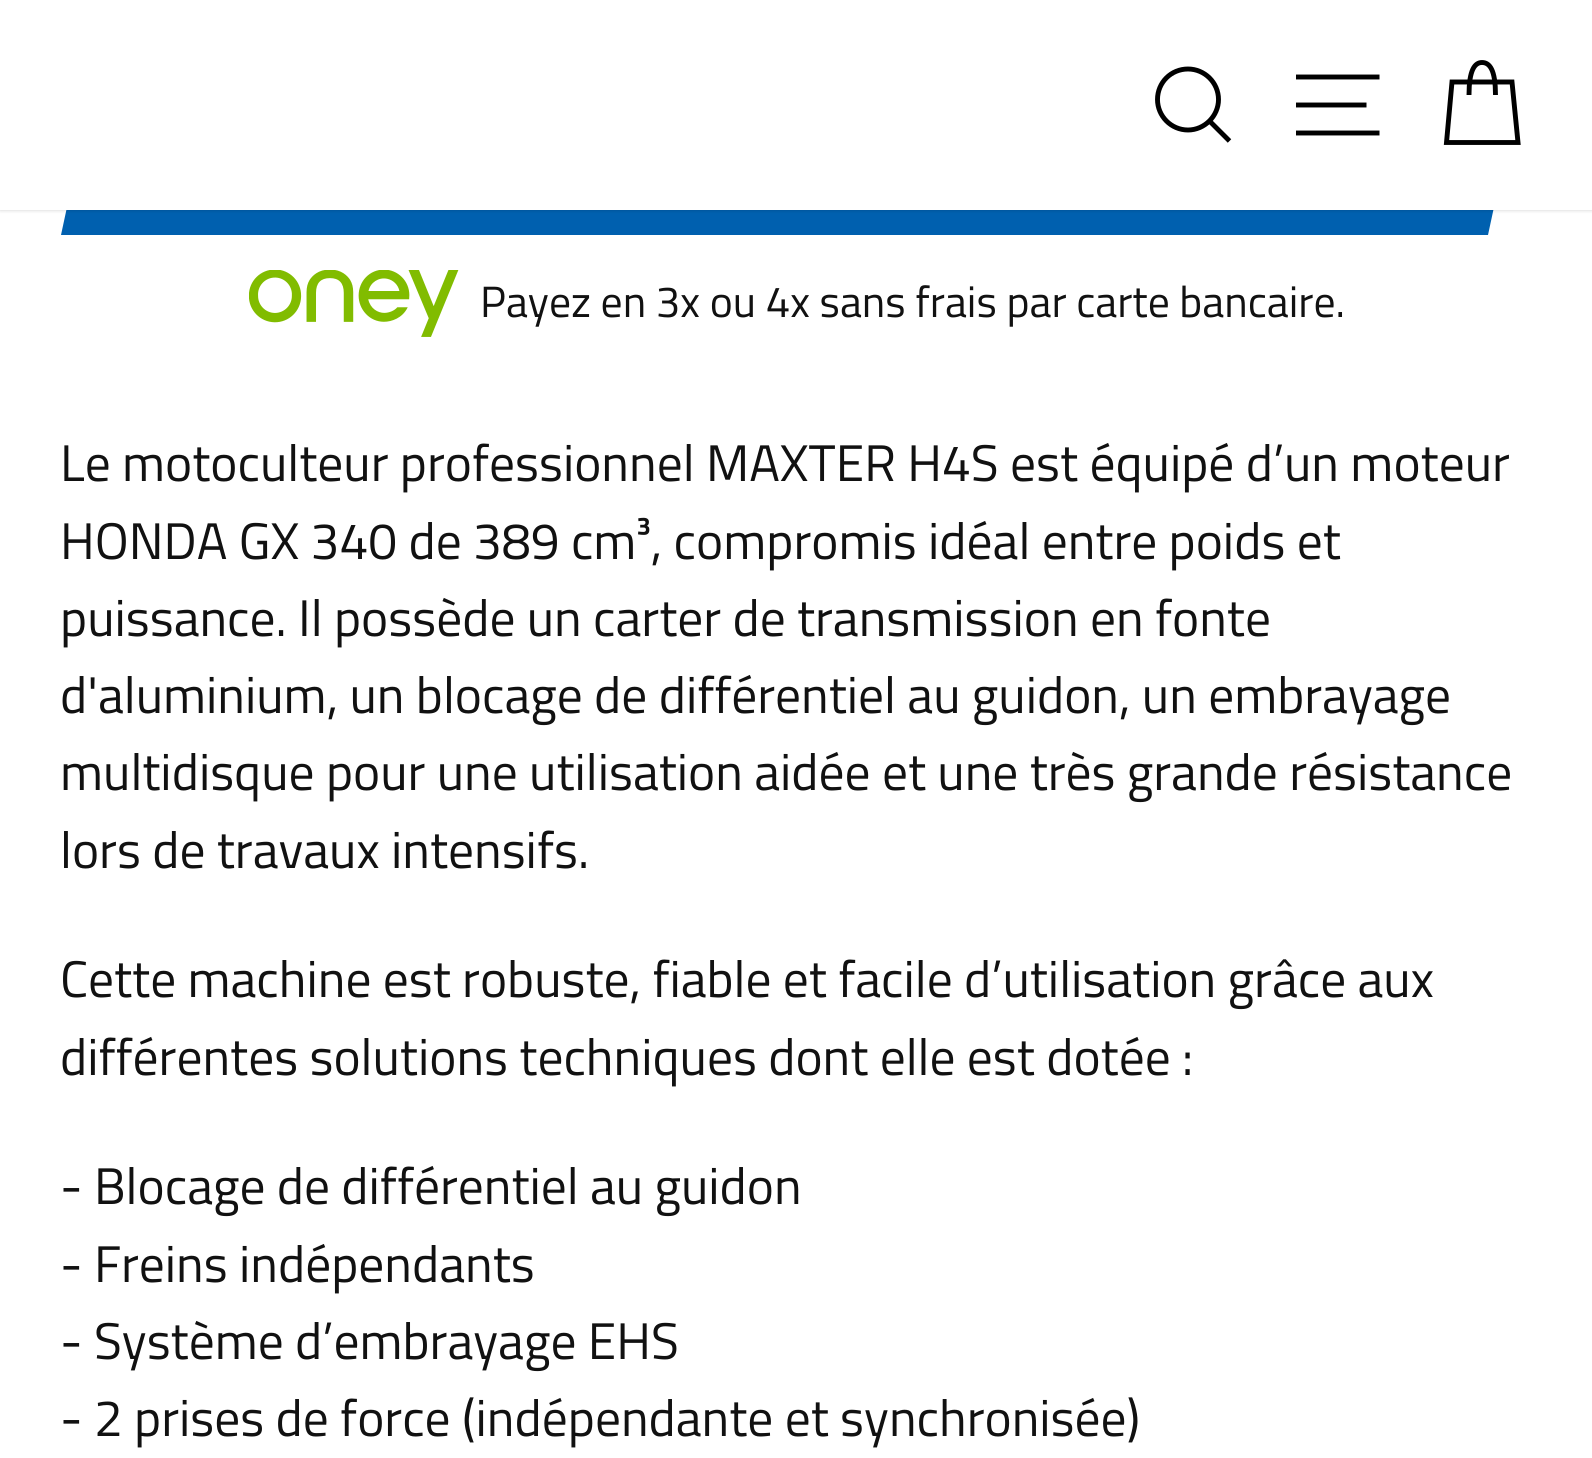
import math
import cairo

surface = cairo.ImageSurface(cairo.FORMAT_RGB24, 1592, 1458)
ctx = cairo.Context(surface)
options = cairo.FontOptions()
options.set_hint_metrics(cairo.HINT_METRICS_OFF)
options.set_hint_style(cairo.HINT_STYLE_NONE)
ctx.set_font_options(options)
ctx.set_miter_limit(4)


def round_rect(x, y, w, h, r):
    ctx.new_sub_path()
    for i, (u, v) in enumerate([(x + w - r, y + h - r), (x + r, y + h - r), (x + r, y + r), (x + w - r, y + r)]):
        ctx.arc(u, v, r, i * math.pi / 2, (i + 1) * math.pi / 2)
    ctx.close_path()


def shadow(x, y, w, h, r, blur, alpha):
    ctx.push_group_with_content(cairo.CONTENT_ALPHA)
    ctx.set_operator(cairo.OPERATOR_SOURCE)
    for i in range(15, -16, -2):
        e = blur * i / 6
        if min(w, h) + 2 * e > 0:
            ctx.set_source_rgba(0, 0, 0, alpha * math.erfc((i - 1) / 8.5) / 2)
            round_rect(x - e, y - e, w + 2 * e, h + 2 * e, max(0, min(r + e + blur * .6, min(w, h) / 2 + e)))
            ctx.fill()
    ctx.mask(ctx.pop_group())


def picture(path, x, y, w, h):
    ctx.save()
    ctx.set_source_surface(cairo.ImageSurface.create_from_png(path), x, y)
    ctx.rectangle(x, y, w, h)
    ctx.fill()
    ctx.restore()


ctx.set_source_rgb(1, 1, 1)
ctx.paint()
ctx.set_source_rgb(0, 0.376, 0.686)
ctx.new_path()
ctx.move_to(104, 35)
ctx.line_to(1489, 35)
ctx.line_to(1446, 235)
ctx.line_to(61, 235)
ctx.close_path()
ctx.fill()
ctx.new_path()
ctx.move_to(146, 35)
ctx.line_to(1531, 35)
ctx.line_to(1488, 235)
ctx.line_to(103, 235)
ctx.close_path()
ctx.fill()
ctx.set_source_rgb(0, 0, 0)
shadow(0, 0, 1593, 210, 0, 2, 0.2)
ctx.set_source_rgb(1, 1, 1)
ctx.rectangle(0, 0, 1592, 210)
ctx.fill()
ctx.new_path()
ctx.move_to(1218.5, 99.5)
ctx.curve_to(1218.5, 116, 1204.5, 130, 1188, 130)
ctx.curve_to(1171, 130, 1157.5, 116, 1157.5, 99.5)
ctx.curve_to(1157.5, 82.5, 1171, 69, 1188, 69)
ctx.curve_to(1204.5, 69, 1218.5, 82.5, 1218.5, 99.5)
ctx.close_path()
ctx.move_to(1229.5, 141)
ctx.line_to(1210, 121.5)
ctx.set_source_rgb(0, 0, 0)
ctx.set_line_width(4.9)
ctx.stroke()
ctx.new_path()
ctx.move_to(1296, 77)
ctx.line_to(1379.5, 77)
ctx.move_to(1296, 105)
ctx.line_to(1366.5, 105)
ctx.move_to(1296, 133)
ctx.line_to(1379.5, 133)
ctx.stroke()
ctx.new_path()
ctx.move_to(1469, 95)
ctx.curve_to(1469, 69.5, 1475, 62.5, 1482, 62.5)
ctx.curve_to(1489.5, 62.5, 1495.5, 69.5, 1495.5, 95)
ctx.stroke()
ctx.new_path()
ctx.move_to(1452, 82)
ctx.line_to(1512, 82)
ctx.line_to(1518, 142.5)
ctx.line_to(1446.5, 142.5)
ctx.close_path()
ctx.stroke()
picture("img1.png", 249, 270, 210, 67)
ctx.select_font_face("Titillium Web")
ctx.set_font_size(43.75)
ctx.set_source_rgb(0.067, 0.067, 0.067)
ctx.move_to(480, 317)
ctx.show_text("Payez en 3x ou 4x sans frais par carte bancaire.")
ctx.set_font_size(51.5)
ctx.move_to(60, 481)
ctx.show_text("Le motoculteur professionnel MAXTER H4S est équipé d’un moteur")
ctx.move_to(60, 559)
ctx.show_text("HONDA GX 340 de 389 cm³, compromis idéal entre poids et")
ctx.move_to(60, 636)
ctx.show_text("puissance. Il possède un carter de transmission en fonte")
ctx.move_to(60, 713)
ctx.show_text("d'aluminium, un blocage de différentiel au guidon, un embrayage")
ctx.move_to(60, 790)
ctx.show_text("multidisque pour une utilisation aidée et une très grande résistance")
ctx.move_to(60, 868)
ctx.show_text("lors de travaux intensifs.")
ctx.move_to(60, 997)
ctx.show_text("Cette machine est robuste, fiable et facile d’utilisation grâce aux")
ctx.move_to(60, 1075)
ctx.show_text("différentes solutions techniques dont elle est dotée :")
ctx.move_to(60, 1204)
ctx.show_text("- Blocage de différentiel au guidon")
ctx.move_to(60, 1282)
ctx.show_text("- Freins indépendants")
ctx.move_to(60, 1359)
ctx.show_text("- Système d’embrayage EHS")
ctx.move_to(60, 1436)
ctx.show_text("- 2 prises de force (indépendante et synchronisée)")
surface.write_to_png("page.png")
